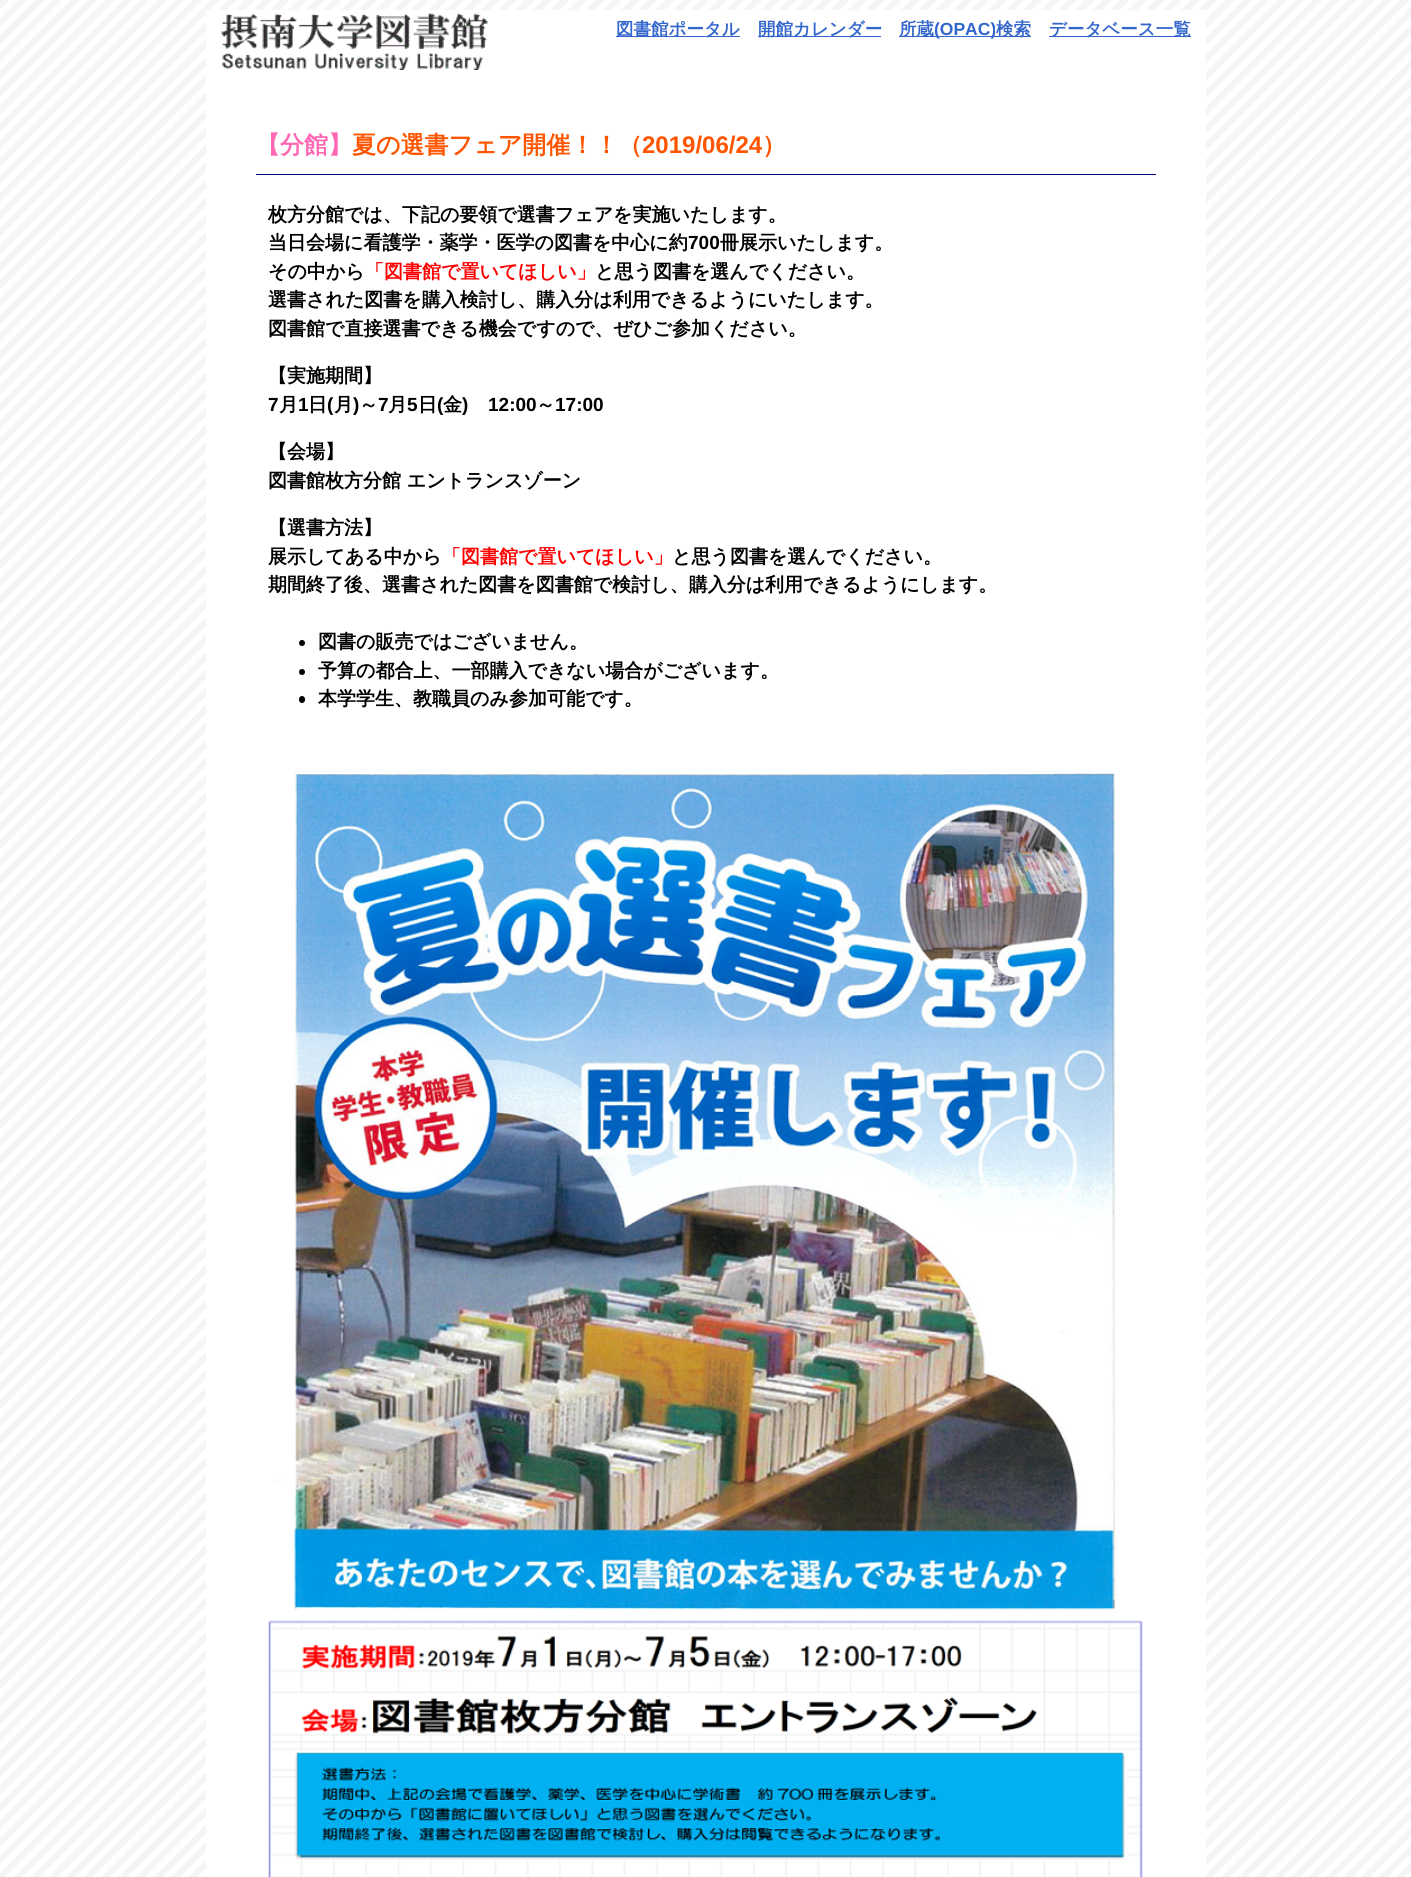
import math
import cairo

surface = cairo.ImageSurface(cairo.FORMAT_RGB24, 1411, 1877)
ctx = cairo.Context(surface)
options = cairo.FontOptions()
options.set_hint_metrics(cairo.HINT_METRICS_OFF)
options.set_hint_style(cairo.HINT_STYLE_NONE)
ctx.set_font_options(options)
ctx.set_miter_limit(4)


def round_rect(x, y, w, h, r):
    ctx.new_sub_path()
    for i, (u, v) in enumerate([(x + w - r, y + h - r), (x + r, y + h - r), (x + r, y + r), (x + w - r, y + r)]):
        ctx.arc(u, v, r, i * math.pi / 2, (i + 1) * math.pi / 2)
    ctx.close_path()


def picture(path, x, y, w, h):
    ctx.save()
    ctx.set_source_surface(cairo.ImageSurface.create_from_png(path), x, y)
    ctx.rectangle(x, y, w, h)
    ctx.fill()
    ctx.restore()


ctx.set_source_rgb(1, 1, 1)
ctx.paint()
picture("img1.png", 0, 0, 1411, 1877)
ctx.set_source_rgb(1, 1, 1)
ctx.rectangle(206, 10, 1000, 1867)
ctx.fill()
picture("img2.png", 221, 13, 267, 57)
ctx.set_source_rgb(0.2, 0.4, 0.8)
ctx.rectangle(616, 36, 124, 1)
ctx.fill()
ctx.select_font_face("WenQuanYi Zen Hei", cairo.FONT_SLANT_NORMAL, cairo.FONT_WEIGHT_BOLD)
ctx.set_font_size(17.5)
ctx.move_to(616, 35)
ctx.show_text("図書館ポータル")
ctx.rectangle(758, 36, 123, 1)
ctx.fill()
ctx.move_to(758, 35)
ctx.show_text("開館カレンダー")
ctx.rectangle(899, 36, 132, 1)
ctx.fill()
ctx.move_to(899, 35)
ctx.show_text("所蔵")
ctx.select_font_face("Liberation Sans", cairo.FONT_SLANT_NORMAL, cairo.FONT_WEIGHT_BOLD)
ctx.move_to(934, 35)
ctx.show_text("(OPAC)")
ctx.select_font_face("WenQuanYi Zen Hei", cairo.FONT_SLANT_NORMAL, cairo.FONT_WEIGHT_BOLD)
ctx.move_to(996, 35)
ctx.show_text("検索")
ctx.rectangle(1049, 36, 142, 1)
ctx.fill()
ctx.move_to(1049, 35)
ctx.show_text("データベース一覧")
ctx.set_font_size(24)
ctx.set_source_rgb(1, 0.4, 0.702)
ctx.move_to(256, 153)
ctx.show_text("【分館】")
ctx.set_source_rgb(1, 0.333, 0)
ctx.move_to(352, 153)
ctx.show_text("夏の選書フェア開催！！（")
ctx.select_font_face("Liberation Sans", cairo.FONT_SLANT_NORMAL, cairo.FONT_WEIGHT_BOLD)
ctx.move_to(642, 153)
ctx.show_text("2019/06/24")
ctx.select_font_face("WenQuanYi Zen Hei", cairo.FONT_SLANT_NORMAL, cairo.FONT_WEIGHT_BOLD)
ctx.move_to(762, 153)
ctx.show_text("）")
ctx.set_source_rgb(0, 0, 0.502)
ctx.rectangle(256, 174, 900, 1)
ctx.fill()
ctx.set_font_size(19)
ctx.set_source_rgb(0, 0, 0)
ctx.move_to(268, 221)
ctx.show_text("枚方分館では、下記の要領で選書フェアを実施いたします。")
ctx.move_to(268, 249)
ctx.show_text("当日会場に看護学・薬学・医学の図書を中心に約")
ctx.select_font_face("Liberation Sans", cairo.FONT_SLANT_NORMAL, cairo.FONT_WEIGHT_BOLD)
ctx.move_to(688, 249)
ctx.show_text("700")
ctx.select_font_face("WenQuanYi Zen Hei", cairo.FONT_SLANT_NORMAL, cairo.FONT_WEIGHT_BOLD)
ctx.move_to(720, 249)
ctx.show_text("冊展示いたします。")
ctx.move_to(268, 278)
ctx.show_text("その中から")
ctx.set_source_rgb(1, 0, 0)
ctx.move_to(365, 278)
ctx.show_text("「図書館で置いてほしい」")
ctx.set_source_rgb(0, 0, 0)
ctx.move_to(595, 278)
ctx.show_text("と思う図書を選んでください。")
ctx.move_to(268, 306)
ctx.show_text("選書された図書を購入検討し、購入分は利用できるようにいたします。")
ctx.move_to(268, 335)
ctx.show_text("図書館で直接選書できる機会ですので、ぜひご参加ください。")
ctx.move_to(268, 382)
ctx.show_text("【実施期間】")
ctx.select_font_face("Liberation Sans", cairo.FONT_SLANT_NORMAL, cairo.FONT_WEIGHT_BOLD)
ctx.move_to(268, 411)
ctx.show_text("7")
ctx.select_font_face("WenQuanYi Zen Hei", cairo.FONT_SLANT_NORMAL, cairo.FONT_WEIGHT_BOLD)
ctx.move_to(279, 411)
ctx.show_text("月")
ctx.select_font_face("Liberation Sans", cairo.FONT_SLANT_NORMAL, cairo.FONT_WEIGHT_BOLD)
ctx.move_to(298, 411)
ctx.show_text("1")
ctx.select_font_face("WenQuanYi Zen Hei", cairo.FONT_SLANT_NORMAL, cairo.FONT_WEIGHT_BOLD)
ctx.move_to(308, 411)
ctx.show_text("日")
ctx.select_font_face("Liberation Sans", cairo.FONT_SLANT_NORMAL, cairo.FONT_WEIGHT_BOLD)
ctx.move_to(327, 411)
ctx.show_text("(")
ctx.select_font_face("WenQuanYi Zen Hei", cairo.FONT_SLANT_NORMAL, cairo.FONT_WEIGHT_BOLD)
ctx.move_to(334, 411)
ctx.show_text("月")
ctx.select_font_face("Liberation Sans", cairo.FONT_SLANT_NORMAL, cairo.FONT_WEIGHT_BOLD)
ctx.move_to(353, 411)
ctx.show_text(")")
ctx.select_font_face("WenQuanYi Zen Hei", cairo.FONT_SLANT_NORMAL, cairo.FONT_WEIGHT_BOLD)
ctx.move_to(359, 411)
ctx.show_text("～")
ctx.select_font_face("Liberation Sans", cairo.FONT_SLANT_NORMAL, cairo.FONT_WEIGHT_BOLD)
ctx.move_to(378, 411)
ctx.show_text("7")
ctx.select_font_face("WenQuanYi Zen Hei", cairo.FONT_SLANT_NORMAL, cairo.FONT_WEIGHT_BOLD)
ctx.move_to(388, 411)
ctx.show_text("月")
ctx.select_font_face("Liberation Sans", cairo.FONT_SLANT_NORMAL, cairo.FONT_WEIGHT_BOLD)
ctx.move_to(407, 411)
ctx.show_text("5")
ctx.select_font_face("WenQuanYi Zen Hei", cairo.FONT_SLANT_NORMAL, cairo.FONT_WEIGHT_BOLD)
ctx.move_to(418, 411)
ctx.show_text("日")
ctx.select_font_face("Liberation Sans", cairo.FONT_SLANT_NORMAL, cairo.FONT_WEIGHT_BOLD)
ctx.move_to(437, 411)
ctx.show_text("(")
ctx.select_font_face("WenQuanYi Zen Hei", cairo.FONT_SLANT_NORMAL, cairo.FONT_WEIGHT_BOLD)
ctx.move_to(443, 411)
ctx.show_text("金")
ctx.select_font_face("Liberation Sans", cairo.FONT_SLANT_NORMAL, cairo.FONT_WEIGHT_BOLD)
ctx.move_to(462, 411)
ctx.show_text(")")
ctx.move_to(488, 411)
ctx.show_text("12:00")
ctx.select_font_face("WenQuanYi Zen Hei", cairo.FONT_SLANT_NORMAL, cairo.FONT_WEIGHT_BOLD)
ctx.move_to(536, 411)
ctx.show_text("～")
ctx.select_font_face("Liberation Sans", cairo.FONT_SLANT_NORMAL, cairo.FONT_WEIGHT_BOLD)
ctx.move_to(555, 411)
ctx.show_text("17:00")
ctx.select_font_face("WenQuanYi Zen Hei", cairo.FONT_SLANT_NORMAL, cairo.FONT_WEIGHT_BOLD)
ctx.move_to(268, 458)
ctx.show_text("【会場】")
ctx.move_to(268, 487)
ctx.show_text("図書館枚方分館 エントランスゾーン")
ctx.move_to(268, 534)
ctx.show_text("【選書方法】")
ctx.move_to(268, 563)
ctx.show_text("展示してある中から")
ctx.set_source_rgb(1, 0, 0)
ctx.move_to(442, 563)
ctx.show_text("「図書館で置いてほしい」")
ctx.set_source_rgb(0, 0, 0)
ctx.move_to(672, 563)
ctx.show_text("と思う図書を選んでください。")
ctx.move_to(268, 591)
ctx.show_text("期間終了後、選書された図書を図書館で検討し、購入分は利用できるようにします。")
ctx.new_path()
ctx.arc(302, 643, 3, 0, 2 * math.pi)
ctx.fill()
ctx.move_to(318, 648)
ctx.show_text("図書の販売ではございません。")
ctx.new_path()
ctx.arc(302, 672, 3, 0, 2 * math.pi)
ctx.fill()
ctx.move_to(318, 677)
ctx.show_text("予算の都合上、一部購入できない場合がございます。")
round_rect(299, 696, 6, 7, 3)
ctx.fill()
ctx.move_to(318, 705)
ctx.show_text("本学学生、教職員のみ参加可能です。")
picture("img3.png", 268, 771, 875, 1106)
surface.write_to_png("page.png")
